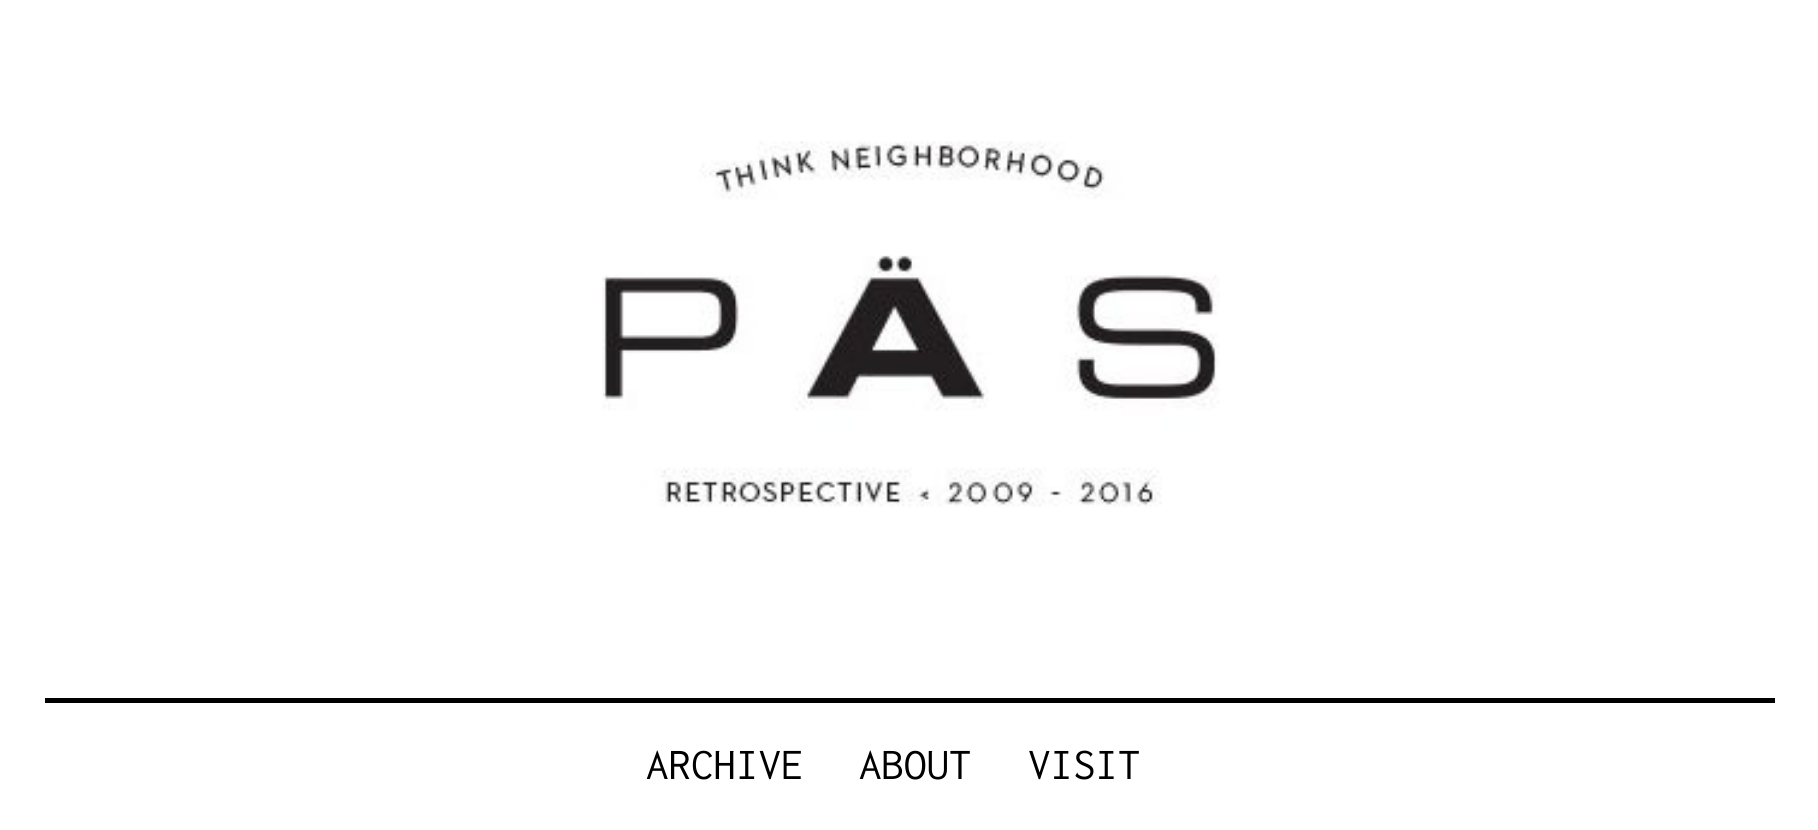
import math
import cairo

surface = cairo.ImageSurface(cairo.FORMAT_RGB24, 1818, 830)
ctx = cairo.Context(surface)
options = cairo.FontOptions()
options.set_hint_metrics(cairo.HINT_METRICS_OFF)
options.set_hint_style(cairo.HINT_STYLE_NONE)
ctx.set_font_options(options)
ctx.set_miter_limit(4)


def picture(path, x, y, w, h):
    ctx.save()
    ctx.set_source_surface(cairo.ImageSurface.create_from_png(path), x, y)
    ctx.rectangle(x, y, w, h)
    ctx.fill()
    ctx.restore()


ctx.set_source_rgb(1, 1, 1)
ctx.paint()
picture("img1.png", 602, 141, 618, 366)
ctx.set_source_rgb(0, 0, 0)
ctx.rectangle(45, 698, 1730, 5)
ctx.fill()
ctx.select_font_face("Inconsolata")
ctx.set_font_size(45)
ctx.move_to(646, 779)
ctx.show_text("ARCHIVE")
ctx.move_to(859, 779)
ctx.show_text("ABOUT")
ctx.move_to(1028, 779)
ctx.show_text("VISIT")
surface.write_to_png("page.png")
